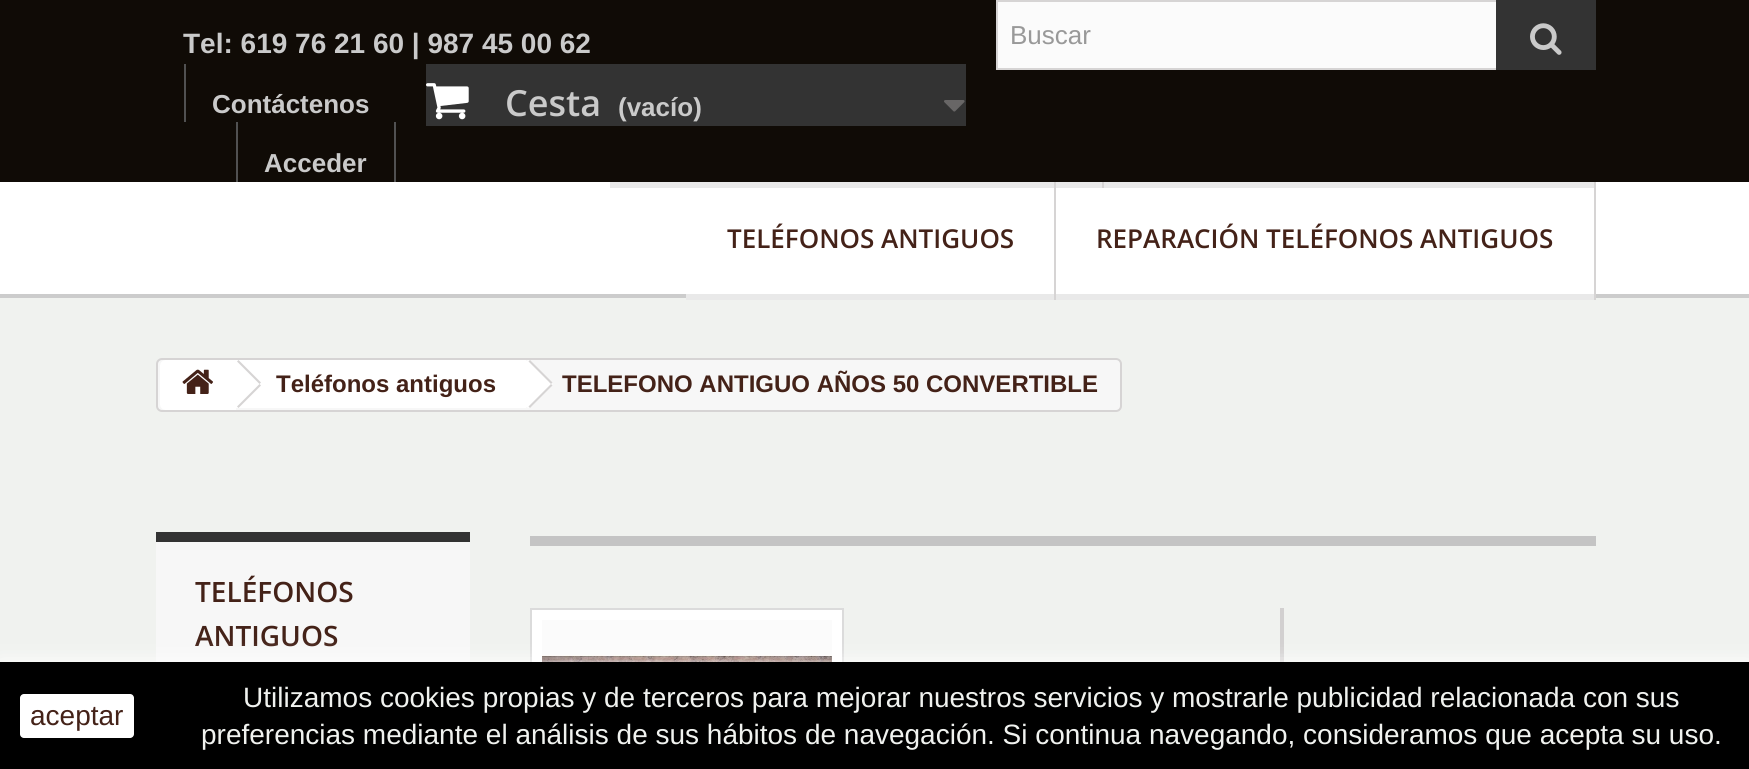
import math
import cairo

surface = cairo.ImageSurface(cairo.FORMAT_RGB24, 1749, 769)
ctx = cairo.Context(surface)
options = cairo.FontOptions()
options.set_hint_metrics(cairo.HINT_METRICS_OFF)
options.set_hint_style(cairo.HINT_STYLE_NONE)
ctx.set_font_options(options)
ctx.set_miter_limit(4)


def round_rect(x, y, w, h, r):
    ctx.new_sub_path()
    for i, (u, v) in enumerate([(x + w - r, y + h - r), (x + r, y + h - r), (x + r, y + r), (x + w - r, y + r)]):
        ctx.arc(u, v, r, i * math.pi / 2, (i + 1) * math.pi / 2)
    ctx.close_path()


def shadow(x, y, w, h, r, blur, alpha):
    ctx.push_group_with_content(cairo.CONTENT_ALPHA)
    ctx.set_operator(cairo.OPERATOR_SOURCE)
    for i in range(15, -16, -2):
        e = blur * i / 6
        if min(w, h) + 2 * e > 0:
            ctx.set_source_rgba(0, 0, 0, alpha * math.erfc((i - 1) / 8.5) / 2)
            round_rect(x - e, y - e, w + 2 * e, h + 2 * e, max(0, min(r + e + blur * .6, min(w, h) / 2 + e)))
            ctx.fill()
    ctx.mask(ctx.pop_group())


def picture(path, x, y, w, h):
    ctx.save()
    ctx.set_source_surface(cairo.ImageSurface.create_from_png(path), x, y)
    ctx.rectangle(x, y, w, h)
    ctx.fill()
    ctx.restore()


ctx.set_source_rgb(0.941, 0.949, 0.937)
ctx.paint()
ctx.set_source_rgb(0.063, 0.043, 0.024)
ctx.rectangle(0, 0, 1749, 182)
ctx.fill()
ctx.select_font_face("Liberation Sans", cairo.FONT_SLANT_NORMAL, cairo.FONT_WEIGHT_BOLD)
ctx.set_font_size(28)
ctx.set_source_rgb(0.792, 0.792, 0.792)
ctx.move_to(183, 53)
ctx.show_text("Tel: 619 76 21 60 | 987 45 00 62")
ctx.set_source_rgb(0.984, 0.984, 0.984)
ctx.rectangle(998, 2, 498, 66)
ctx.fill()
ctx.rectangle(997, 1, 598, 68)
ctx.set_source_rgb(0.839, 0.831, 0.831)
ctx.stroke()
ctx.select_font_face("Liberation Sans")
ctx.set_font_size(26)
ctx.set_source_rgb(0.6, 0.6, 0.6)
ctx.move_to(1010, 44)
ctx.show_text("Buscar")
ctx.set_source_rgb(0.2, 0.2, 0.2)
ctx.rectangle(1496, 0, 100, 70)
ctx.fill()
picture("img1.png", 1530, 23, 32, 32)
ctx.set_source_rgb(0.318, 0.318, 0.318)
ctx.rectangle(184, 64, 2, 58)
ctx.fill()
ctx.select_font_face("Liberation Sans", cairo.FONT_SLANT_NORMAL, cairo.FONT_WEIGHT_BOLD)
ctx.set_source_rgb(0.792, 0.792, 0.792)
ctx.move_to(212, 113)
ctx.show_text("Contáctenos")
ctx.set_source_rgb(0.2, 0.2, 0.2)
ctx.rectangle(426, 64, 540, 62)
ctx.fill()
picture("img2.png", 426, 83, 43, 37)
ctx.select_font_face("Open Sans SemiBold")
ctx.set_font_size(36)
ctx.set_source_rgb(0.792, 0.792, 0.792)
ctx.move_to(505, 116)
ctx.show_text("Cesta")
ctx.select_font_face("Liberation Sans", cairo.FONT_SLANT_NORMAL, cairo.FONT_WEIGHT_BOLD)
ctx.set_font_size(26)
ctx.move_to(618, 116)
ctx.show_text("(vacío)")
picture("img3.png", 944, 100, 21, 12)
ctx.set_source_rgb(0.318, 0.318, 0.318)
ctx.rectangle(394, 122, 2, 60)
ctx.fill()
ctx.rectangle(236, 122, 2, 60)
ctx.fill()
ctx.set_source_rgb(0.792, 0.792, 0.792)
ctx.move_to(264, 172)
ctx.show_text("Acceder")
ctx.set_source_rgb(1, 1, 1)
ctx.rectangle(0, 182, 1749, 112)
ctx.fill()
ctx.set_source_rgb(0.8, 0.8, 0.8)
ctx.rectangle(0, 294, 1749, 4)
ctx.fill()
ctx.set_source_rgb(0.839, 0.831, 0.831)
ctx.rectangle(1102, 182, 2, 6)
ctx.fill()
ctx.set_source_rgb(0.914, 0.914, 0.914)
ctx.rectangle(610, 182, 492, 6)
ctx.fill()
ctx.rectangle(1104, 182, 490, 6)
ctx.fill()
ctx.set_source_rgb(0.839, 0.831, 0.831)
ctx.rectangle(1054, 182, 2, 118)
ctx.fill()
ctx.set_source_rgb(0.914, 0.914, 0.914)
ctx.rectangle(686, 294, 368, 6)
ctx.fill()
ctx.select_font_face("Open Sans SemiBold")
ctx.set_source_rgb(0.267, 0.133, 0.094)
ctx.move_to(727, 248)
ctx.show_text("TELÉFONOS ANTIGUOS")
ctx.set_source_rgb(0.839, 0.831, 0.831)
ctx.rectangle(1594, 182, 2, 118)
ctx.fill()
ctx.set_source_rgb(0.914, 0.914, 0.914)
ctx.rectangle(1056, 294, 538, 6)
ctx.fill()
ctx.set_source_rgb(0.267, 0.133, 0.094)
ctx.move_to(1096, 248)
ctx.show_text("REPARACIÓN TELÉFONOS ANTIGUOS")
ctx.set_source_rgb(0.965, 0.965, 0.965)
round_rect(157, 359, 964, 52, 5)
ctx.fill_preserve()
ctx.set_source_rgb(0.839, 0.831, 0.831)
ctx.stroke()
ctx.set_source_rgb(1, 1, 1)
ctx.new_path()
ctx.move_to(166, 360)
ctx.line_to(236, 360)
ctx.line_to(236, 410)
ctx.line_to(166, 410)
ctx.curve_to(162.5, 410, 160, 407.5, 160, 404)
ctx.line_to(160, 366)
ctx.curve_to(160, 362.5, 162.5, 360, 166, 360)
ctx.close_path()
ctx.fill()
picture("img4.png", 182, 369, 31, 25)
ctx.rectangle(236, 360, 290, 48)
ctx.fill()
ctx.set_source_rgb(0.839, 0.831, 0.831)
ctx.new_path()
ctx.move_to(238.5, 360)
ctx.line_to(261, 382.5)
ctx.line_to(259.5, 384)
ctx.line_to(237, 361.5)
ctx.close_path()
ctx.move_to(259.5, 384)
ctx.line_to(261, 385.5)
ctx.line_to(238.5, 408)
ctx.line_to(237, 406.5)
ctx.close_path()
ctx.fill()
ctx.select_font_face("Liberation Sans", cairo.FONT_SLANT_NORMAL, cairo.FONT_WEIGHT_BOLD)
ctx.set_font_size(24)
ctx.set_source_rgb(0.267, 0.133, 0.094)
ctx.move_to(276, 392)
ctx.show_text("Teléfonos antiguos")
ctx.set_source_rgb(1, 1, 1)
ctx.new_path()
ctx.move_to(531, 361)
ctx.line_to(551, 381)
ctx.curve_to(553, 383, 553, 385, 551, 387)
ctx.line_to(531, 407)
ctx.curve_to(530, 408, 527, 408, 526, 407)
ctx.line_to(506, 387)
ctx.curve_to(504, 385, 504, 383, 506, 381)
ctx.line_to(526, 361)
ctx.curve_to(527, 360, 530, 360, 531, 361)
ctx.close_path()
ctx.fill()
ctx.set_source_rgb(0.839, 0.831, 0.831)
ctx.new_path()
ctx.move_to(530, 360)
ctx.line_to(552.5, 382.5)
ctx.line_to(551, 384)
ctx.line_to(528.5, 361.5)
ctx.close_path()
ctx.move_to(551, 384)
ctx.line_to(552.5, 385.5)
ctx.line_to(530, 408)
ctx.line_to(528.5, 406.5)
ctx.close_path()
ctx.fill()
ctx.set_source_rgb(0.267, 0.133, 0.094)
ctx.move_to(562, 392)
ctx.show_text("TELEFONO ANTIGUO AÑOS 50 CONVERTIBLE")
ctx.set_source_rgb(0.965, 0.965, 0.965)
ctx.rectangle(156, 542, 314, 120)
ctx.fill()
ctx.set_source_rgb(0.2, 0.2, 0.2)
ctx.rectangle(156, 532, 314, 10)
ctx.fill()
ctx.select_font_face("Open Sans SemiBold")
ctx.set_font_size(28)
ctx.set_source_rgb(0.267, 0.133, 0.094)
ctx.move_to(195, 602)
ctx.show_text("TELÉFONOS")
ctx.move_to(195, 646)
ctx.show_text("ANTIGUOS")
ctx.set_source_rgb(0.769, 0.769, 0.769)
ctx.rectangle(530, 536, 1066, 10)
ctx.fill()
ctx.set_source_rgb(1, 1, 1)
ctx.rectangle(532, 610, 310, 52)
ctx.fill()
ctx.rectangle(531, 609, 312, 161)
ctx.set_source_rgb(0.859, 0.859, 0.859)
ctx.stroke()
ctx.set_source_rgb(0.984, 0.984, 0.984)
ctx.rectangle(542, 620, 290, 35)
ctx.fill()
picture("img5.png", 542, 655, 290, 7)
ctx.set_source_rgb(0.824, 0.816, 0.816)
ctx.rectangle(1280, 608, 4, 54)
ctx.fill()
ctx.set_source_rgb(1, 1, 1)
shadow(0, 662, 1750, 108, 0, 10, 1)
ctx.set_source_rgb(0, 0, 0)
ctx.rectangle(0, 662, 1749, 107)
ctx.fill()
ctx.set_source_rgb(1, 1, 1)
round_rect(20, 694, 114, 44, 4)
ctx.fill()
ctx.select_font_face("Liberation Sans")
ctx.set_source_rgb(0.267, 0.133, 0.094)
ctx.move_to(30, 725)
ctx.show_text("aceptar")
ctx.set_source_rgb(0.941, 0.949, 0.937)
ctx.move_to(243, 707)
ctx.show_text("Utilizamos cookies propias y de terceros para mejorar nuestros servicios y mostrarle publicidad relacionada con sus")
ctx.move_to(201, 744)
ctx.show_text("preferencias mediante el análisis de sus hábitos de navegación. Si continua navegando, consideramos que acepta su uso.")
surface.write_to_png("page.png")
